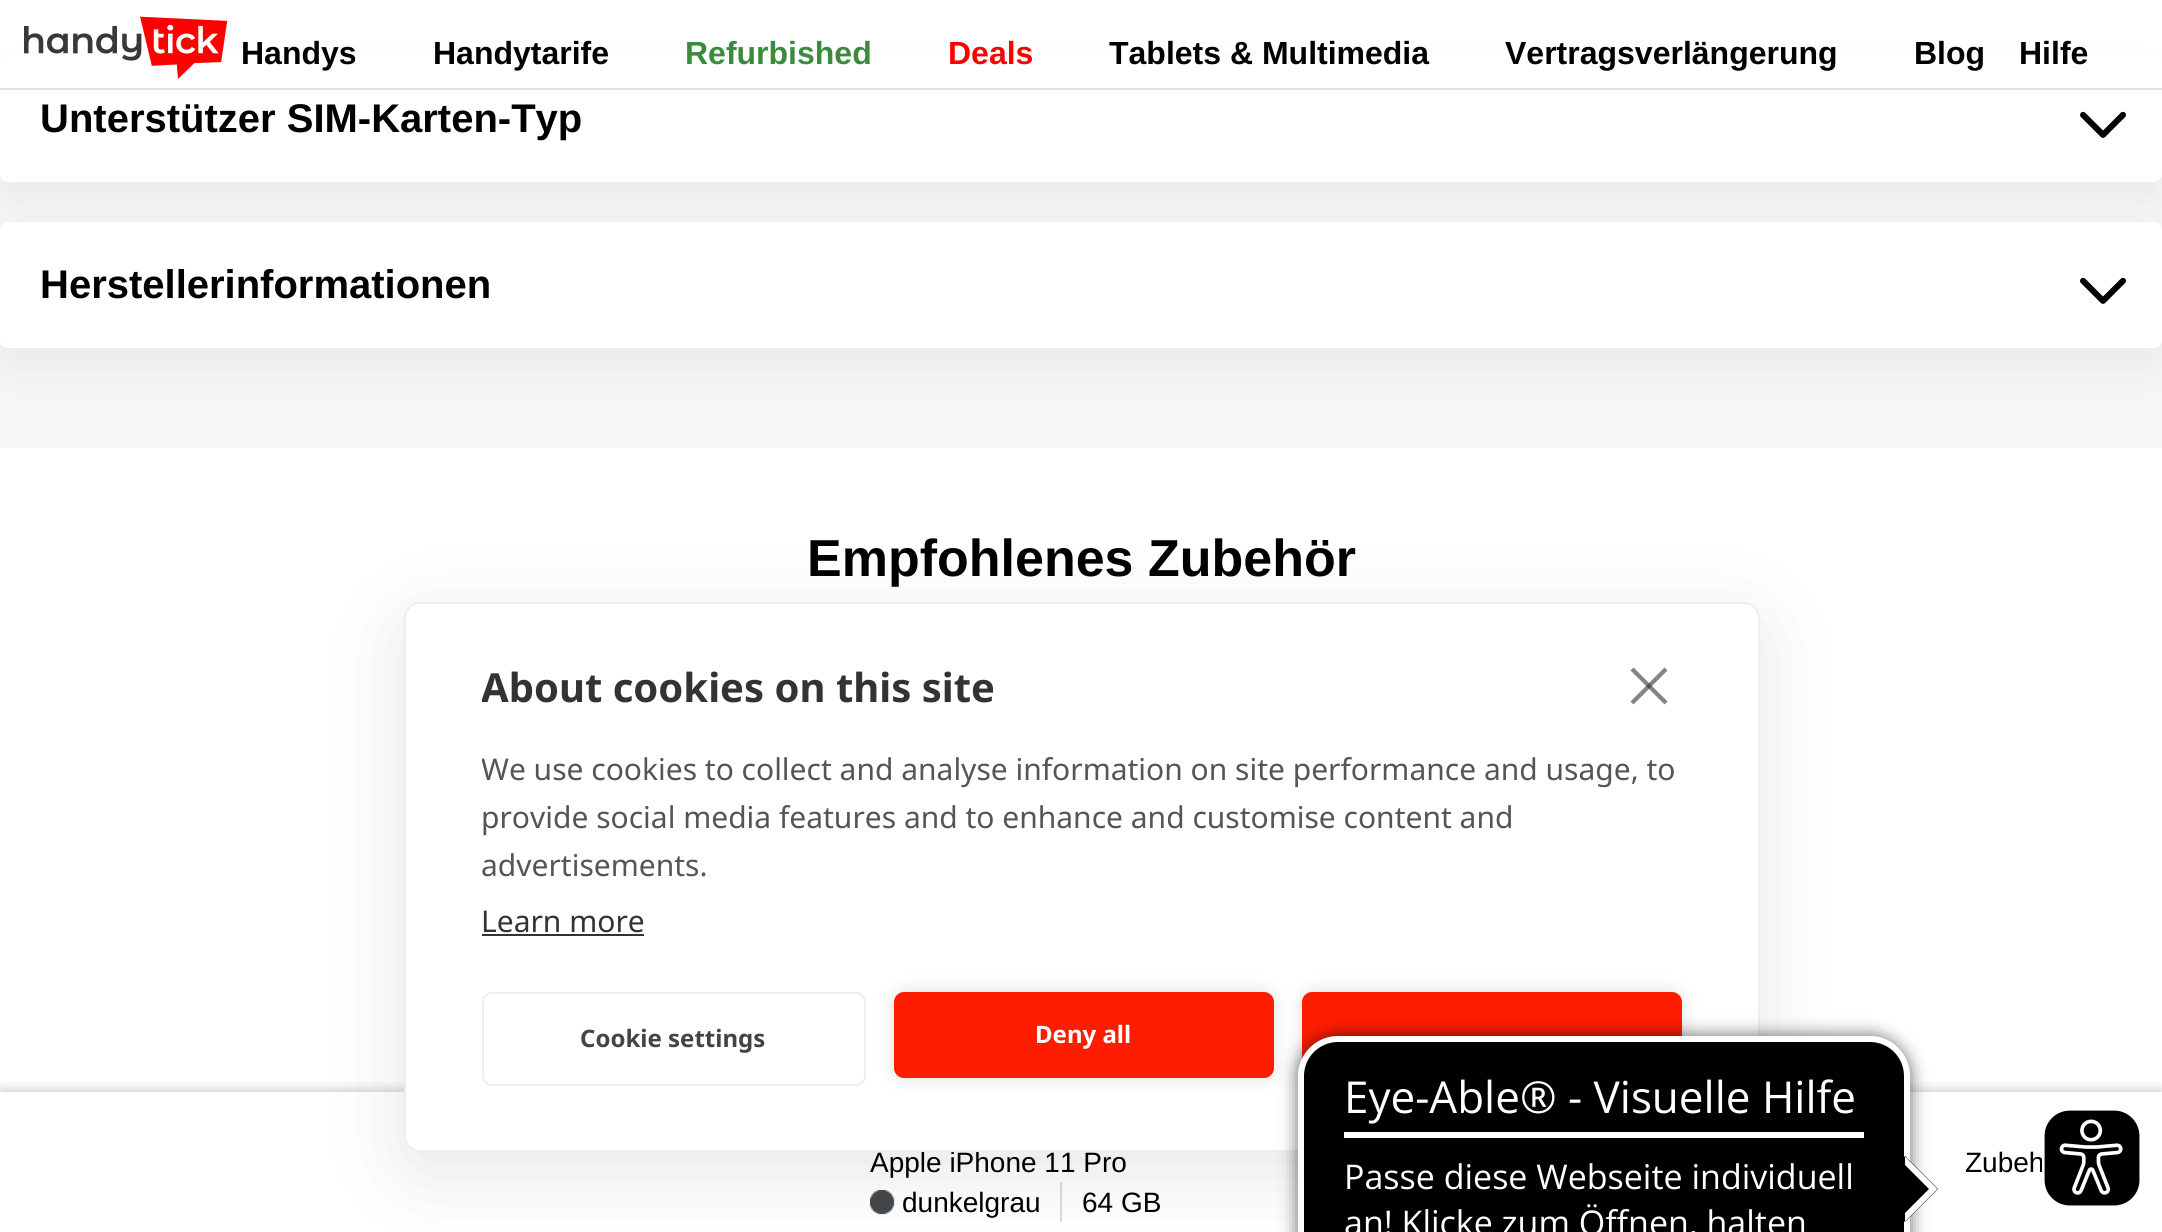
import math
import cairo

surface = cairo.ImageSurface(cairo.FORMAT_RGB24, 2162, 1232)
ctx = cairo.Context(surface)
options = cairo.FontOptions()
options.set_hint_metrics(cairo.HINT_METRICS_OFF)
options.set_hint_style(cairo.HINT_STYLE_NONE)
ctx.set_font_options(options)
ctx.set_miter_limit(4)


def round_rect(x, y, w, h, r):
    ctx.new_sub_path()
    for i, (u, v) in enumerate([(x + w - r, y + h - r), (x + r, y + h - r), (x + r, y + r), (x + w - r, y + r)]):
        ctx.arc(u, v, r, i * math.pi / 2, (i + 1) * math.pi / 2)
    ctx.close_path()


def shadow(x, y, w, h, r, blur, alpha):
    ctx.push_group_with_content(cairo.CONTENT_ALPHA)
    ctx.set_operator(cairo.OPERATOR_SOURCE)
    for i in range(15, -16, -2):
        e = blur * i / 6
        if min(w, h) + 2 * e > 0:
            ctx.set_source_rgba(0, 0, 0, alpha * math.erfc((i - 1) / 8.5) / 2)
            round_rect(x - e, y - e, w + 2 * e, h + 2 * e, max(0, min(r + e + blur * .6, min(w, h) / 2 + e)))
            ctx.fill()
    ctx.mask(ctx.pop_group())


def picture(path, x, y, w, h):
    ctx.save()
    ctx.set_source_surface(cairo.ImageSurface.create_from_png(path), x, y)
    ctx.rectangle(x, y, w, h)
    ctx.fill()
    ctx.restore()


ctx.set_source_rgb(1, 1, 1)
ctx.paint()
ctx.set_source_rgb(0.961, 0.961, 0.961)
ctx.rectangle(0, 174, 2162, 274)
ctx.fill()
ctx.set_source_rgb(0, 0, 0)
shadow(0, 76, 2162, 126, 12, 20, 0.05)
ctx.set_source_rgb(1, 1, 1)
round_rect(0, 56, 2162, 126, 8)
ctx.fill()
ctx.set_source_rgb(0.886, 0.886, 0.886)
ctx.rectangle(0, 88, 2162, 2)
ctx.fill()
picture("img1.png", 24, 16, 204, 63)
ctx.select_font_face("Liberation Sans", cairo.FONT_SLANT_NORMAL, cairo.FONT_WEIGHT_BOLD)
ctx.set_font_size(32)
ctx.set_source_rgb(0, 0, 0)
ctx.move_to(241, 64)
ctx.show_text("Handys")
ctx.move_to(433, 64)
ctx.show_text("Handytarife")
ctx.set_source_rgb(0.235, 0.541, 0.243)
ctx.move_to(685, 64)
ctx.show_text("Refurbished")
ctx.set_source_rgb(1, 0, 0)
ctx.move_to(948, 64)
ctx.show_text("Deals")
ctx.set_source_rgb(0, 0, 0)
ctx.move_to(1109, 64)
ctx.show_text("Tablets & Multimedia")
ctx.move_to(1505, 64)
ctx.show_text("Vertragsverlängerung")
ctx.move_to(1914, 64)
ctx.show_text("Blog")
ctx.move_to(2019, 64)
ctx.show_text("Hilfe")
ctx.set_font_size(40)
ctx.move_to(40, 132)
ctx.show_text("Unterstützer SIM-Karten-Typ")
picture("img2.png", 2080, 111, 46, 27)
ctx.set_source_rgb(0, 0, 0)
shadow(0, 242, 2162, 126, 12, 20, 0.05)
ctx.set_source_rgb(1, 1, 1)
round_rect(0, 222, 2162, 126, 8)
ctx.fill()
ctx.set_source_rgb(0, 0, 0)
ctx.move_to(40, 298)
ctx.show_text("Herstellerinformationen")
picture("img2.png", 2080, 277, 46, 27)
ctx.set_font_size(52)
ctx.move_to(807, 576)
ctx.show_text("Empfohlenes Zubehör")
ctx.save()
ctx.rectangle(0, 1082, 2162, 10)
ctx.clip()
ctx.set_source_rgb(0.196, 0.196, 0.196)
shadow(0, 1088, 2162, 140, 0, 5, 0.2)
ctx.restore()
ctx.select_font_face("Liberation Sans")
ctx.set_font_size(28)
ctx.move_to(870, 1172)
ctx.show_text("Apple iPhone 11 Pro")
picture("img3.png", 870, 1190, 25, 25)
ctx.move_to(902, 1212)
ctx.show_text("dunkelgrau")
ctx.set_source_rgb(0.867, 0.867, 0.867)
ctx.rectangle(1060, 1182, 2, 40)
ctx.fill()
ctx.set_source_rgb(0, 0, 0)
ctx.move_to(1082, 1212)
ctx.show_text("64 GB")
ctx.move_to(1965, 1172)
ctx.show_text("Zubeh")
ctx.set_source_rgb(0, 0, 0)
shadow(404, 622, 1356, 550, 16, 40, 0.1)
ctx.set_source_rgb(1, 1, 1)
round_rect(405, 603, 1354, 548, 15)
ctx.fill_preserve()
ctx.set_source_rgb(0.933, 0.933, 0.933)
ctx.stroke()
ctx.set_source_rgb(0.522, 0.522, 0.522)
ctx.new_path()
ctx.move_to(1630.5, 701.5)
ctx.line_to(1664.5, 667.5)
ctx.line_to(1667.5, 670.5)
ctx.line_to(1633.5, 704.5)
ctx.close_path()
ctx.fill()
ctx.set_source_rgba(0.2, 0.2, 0.2, 0.6)
ctx.new_path()
ctx.move_to(1633.5, 667.5)
ctx.line_to(1667.5, 701.5)
ctx.line_to(1664.5, 704.5)
ctx.line_to(1630.5, 670.5)
ctx.close_path()
ctx.fill()
ctx.save()
ctx.rectangle(482, 668, 1200, 324)
ctx.clip()
ctx.select_font_face("Noto Sans", cairo.FONT_SLANT_NORMAL, cairo.FONT_WEIGHT_BOLD)
ctx.set_font_size(40)
ctx.set_source_rgb(0.2, 0.2, 0.2)
ctx.move_to(481, 702)
ctx.show_text("About cookies on this site")
ctx.select_font_face("Noto Sans")
ctx.set_font_size(30)
ctx.set_source_rgb(0.333, 0.333, 0.333)
ctx.move_to(481, 780)
ctx.show_text("We use cookies to collect and analyse information on site performance and usage, to")
ctx.restore()
ctx.select_font_face("Noto Sans")
ctx.set_font_size(30)
ctx.set_source_rgb(0.333, 0.333, 0.333)
ctx.move_to(481, 828)
ctx.show_text("provide social media features and to enhance and customise content and")
ctx.move_to(481, 876)
ctx.show_text("advertisements.")
ctx.set_source_rgb(0.2, 0.2, 0.2)
ctx.move_to(481, 932)
ctx.show_text("Learn more")
ctx.rectangle(482, 934, 162, 2)
ctx.fill()
round_rect(483, 993, 382, 92, 9)
ctx.set_source_rgb(0.933, 0.933, 0.933)
ctx.stroke()
ctx.select_font_face("Noto Sans", cairo.FONT_SLANT_NORMAL, cairo.FONT_WEIGHT_BOLD)
ctx.set_font_size(24)
ctx.set_source_rgb(0.267, 0.267, 0.267)
ctx.move_to(580, 1047)
ctx.show_text("Cookie settings")
ctx.set_source_rgb(0, 0, 0)
shadow(894, 992, 380, 86, 10, 10, 0.12)
ctx.set_source_rgb(1, 0.114, 0)
round_rect(894, 992, 380, 86, 10)
ctx.fill()
ctx.set_source_rgb(1, 1, 1)
ctx.move_to(1035, 1043)
ctx.show_text("Deny all")
ctx.set_source_rgb(0, 0, 0)
shadow(1302, 992, 380, 86, 10, 10, 0.12)
ctx.set_source_rgb(1, 0.114, 0)
round_rect(1302, 992, 380, 86, 10)
ctx.fill()
ctx.set_source_rgb(0, 0, 0)
shadow(1296, 1034, 616, 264, 42, 8, 0.5)
ctx.set_source_rgb(0, 0, 0)
round_rect(1301, 1039, 606, 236, 37)
ctx.fill_preserve()
ctx.set_source_rgb(1, 1, 1)
ctx.set_line_width(6)
ctx.stroke()
ctx.rectangle(1344, 1132, 520, 6)
ctx.fill()
ctx.select_font_face("Open Sans")
ctx.set_font_size(44)
ctx.move_to(1344, 1113)
ctx.show_text("Eye-Able® - Visuelle Hilfe")
ctx.set_font_size(34)
ctx.move_to(1344, 1189)
ctx.show_text("Passe diese Webseite individuell")
ctx.move_to(1344, 1235)
ctx.show_text("an! Klicke zum Öffnen, halten")
ctx.set_source_rgb(0, 0, 0)
ctx.new_path()
ctx.move_to(1905, 1156)
ctx.line_to(1938, 1189)
ctx.line_to(1905, 1222)
ctx.line_to(1872, 1189)
ctx.close_path()
ctx.fill()
ctx.set_source_rgb(1, 1, 1)
ctx.new_path()
ctx.move_to(1905, 1156.5)
ctx.line_to(1937.5, 1189)
ctx.line_to(1929, 1189)
ctx.line_to(1905, 1165)
ctx.close_path()
ctx.fill()
ctx.new_path()
ctx.move_to(1937.5, 1189)
ctx.line_to(1905, 1221.5)
ctx.line_to(1905, 1213)
ctx.line_to(1929, 1189)
ctx.close_path()
ctx.fill()
picture("img4.png", 2042, 1110, 98, 96)
surface.write_to_png("page.png")
